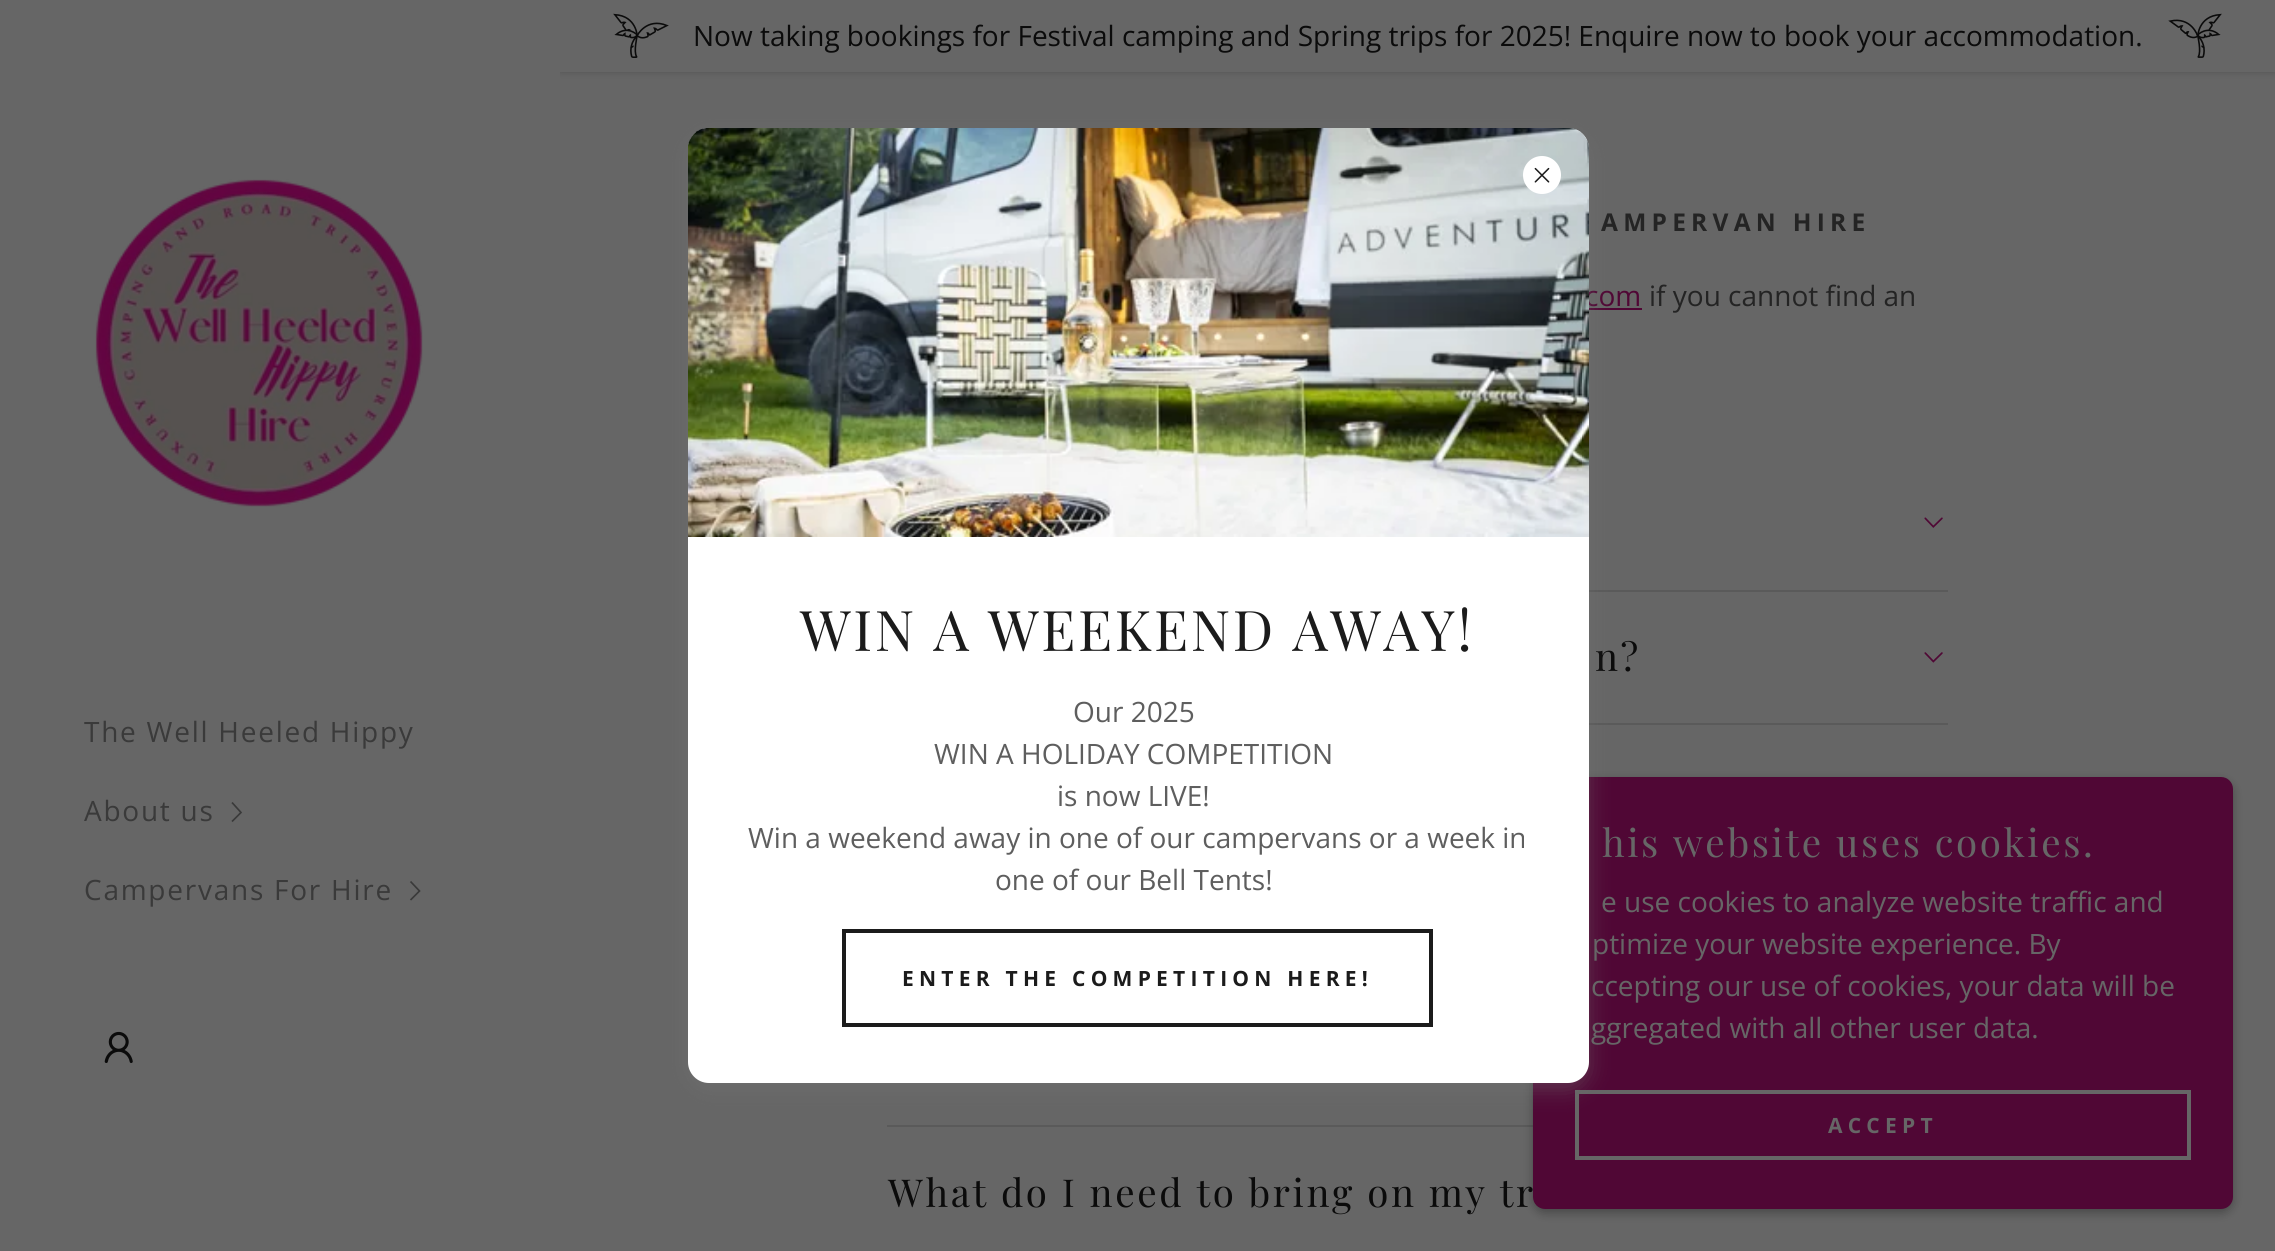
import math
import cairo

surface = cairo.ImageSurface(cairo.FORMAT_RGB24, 2275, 1251)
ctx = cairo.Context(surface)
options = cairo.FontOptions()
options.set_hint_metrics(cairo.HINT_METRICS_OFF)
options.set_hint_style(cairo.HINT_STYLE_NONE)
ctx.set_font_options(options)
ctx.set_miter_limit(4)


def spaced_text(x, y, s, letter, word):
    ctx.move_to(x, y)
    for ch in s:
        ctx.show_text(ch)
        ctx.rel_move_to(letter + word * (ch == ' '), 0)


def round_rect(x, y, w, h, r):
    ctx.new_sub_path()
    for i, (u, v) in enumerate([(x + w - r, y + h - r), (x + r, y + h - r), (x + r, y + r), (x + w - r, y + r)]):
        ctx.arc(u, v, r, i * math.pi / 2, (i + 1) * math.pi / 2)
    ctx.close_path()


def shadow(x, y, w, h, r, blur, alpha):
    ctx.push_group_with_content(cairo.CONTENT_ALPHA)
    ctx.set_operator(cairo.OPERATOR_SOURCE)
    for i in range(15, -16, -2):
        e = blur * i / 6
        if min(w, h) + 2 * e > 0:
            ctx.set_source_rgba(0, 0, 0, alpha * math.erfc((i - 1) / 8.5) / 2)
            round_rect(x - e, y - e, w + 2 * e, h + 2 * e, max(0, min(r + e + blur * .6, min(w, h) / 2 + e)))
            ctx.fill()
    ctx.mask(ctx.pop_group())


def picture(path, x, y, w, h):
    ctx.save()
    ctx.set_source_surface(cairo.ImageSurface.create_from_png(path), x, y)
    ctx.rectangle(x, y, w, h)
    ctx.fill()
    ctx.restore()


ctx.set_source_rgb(0.4, 0.4, 0.4)
ctx.paint()
ctx.save()
ctx.rectangle(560, 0, 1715, 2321)
ctx.clip()
ctx.set_source_rgb(0, 0, 0)
shadow(560, 0, 1715, 72, 0, 3.5, 0.2)
ctx.restore()
ctx.set_source_rgb(0.4, 0.4, 0.4)
ctx.rectangle(560, 0, 1715, 72)
ctx.fill()
picture("img1.png", 613, 13, 56, 45)
ctx.select_font_face("Open Sans")
ctx.set_font_size(28)
ctx.set_source_rgb(0.043, 0.043, 0.043)
ctx.move_to(693, 46)
ctx.show_text("Now taking bookings for Festival camping and Spring trips for 2025! Enquire now to book your accommodation.")
picture("img2.png", 2168, 13, 54, 45)
picture("img3.png", 95, 179, 328, 328)
ctx.set_source_rgb(0.227, 0.227, 0.227)
spaced_text(84, 742, "The Well Heeled Hippy", 1.75, 0)
spaced_text(84, 821, "About us", 1.75, 0)
ctx.new_path()
ctx.move_to(241, 812.5)
ctx.line_to(241.5, 812.5)
ctx.line_to(241, 812.5)
ctx.line_to(241.5, 812)
ctx.close_path()
ctx.move_to(241, 812.5)
ctx.line_to(232, 802.5)
ctx.line_to(241, 812.5)
ctx.line_to(232, 821.5)
ctx.close_path()
ctx.set_line_width(1.7)
ctx.set_line_cap(cairo.LINE_CAP_SQUARE)
ctx.stroke()
spaced_text(84, 900, "Campervans For Hire", 1.75, 0)
ctx.new_path()
ctx.move_to(419.5, 891)
ctx.line_to(420, 891.5)
ctx.line_to(419.5, 891)
ctx.line_to(420, 891)
ctx.close_path()
ctx.move_to(419.5, 891)
ctx.line_to(410.5, 881.5)
ctx.line_to(419.5, 891)
ctx.line_to(410.5, 900)
ctx.close_path()
ctx.stroke()
picture("img4.png", 104, 1031, 29, 32)
ctx.select_font_face("Open Sans", cairo.FONT_SLANT_NORMAL, cairo.FONT_WEIGHT_BOLD)
ctx.set_font_size(24.5)
ctx.set_source_rgb(0.141, 0.141, 0.141)
spaced_text(1601, 231, "AMPERVAN HIRE", 5.25, 0)
ctx.select_font_face("Open Sans")
ctx.set_font_size(28)
ctx.set_source_rgb(0.314, 0.031, 0.208)
ctx.move_to(1585, 306)
ctx.show_text("com")
ctx.rectangle(1589, 308, 53, 2)
ctx.fill()
ctx.set_source_rgb(0.141, 0.141, 0.141)
ctx.move_to(1649, 306)
ctx.show_text("if you cannot find an")
picture("img5.png", 1924, 517, 19, 11)
ctx.set_source_rgb(0.353, 0.353, 0.353)
ctx.rectangle(1589, 590, 359, 2)
ctx.fill()
ctx.select_font_face("Playfair Display")
ctx.set_font_size(38.5)
ctx.set_source_rgb(0.043, 0.043, 0.043)
spaced_text(1595, 671, "n?", 2.6, 0)
picture("img6.png", 1924, 652, 19, 11)
ctx.set_source_rgb(0.353, 0.353, 0.353)
ctx.rectangle(1589, 723, 359, 2)
ctx.fill()
ctx.rectangle(887, 1125, 646, 2)
ctx.fill()
ctx.set_source_rgb(0.043, 0.043, 0.043)
spaced_text(888, 1207, "What do I need to bring on my tr", 2.6, 0)
ctx.set_source_rgb(0, 0, 0)
shadow(1533, 781, 700, 432, 12, 5, 0.3)
ctx.set_source_rgb(0.314, 0.031, 0.208)
round_rect(1533, 777, 700, 432, 12)
ctx.fill()
ctx.rectangle(1577, 1092, 612, 66)
ctx.set_source_rgb(0.4, 0.4, 0.4)
ctx.set_line_width(4)
ctx.set_line_cap(cairo.LINE_CAP_BUTT)
ctx.stroke()
ctx.set_source_rgb(0.459, 0.459, 0.459)
shadow(688, 135, 901, 955, 21, 10.5, 0.4)
ctx.set_source_rgb(1, 1, 1)
round_rect(688, 128, 901, 955, 21)
ctx.fill()
picture("img8.png", 688, 128, 901, 409)
ctx.arc(1542, 175, 19, 0, 2 * math.pi)
ctx.fill()
picture("img7.png", 1534, 167, 16, 16)
ctx.set_font_size(56)
ctx.set_source_rgb(0.106, 0.106, 0.106)
spaced_text(800, 651, "WIN A WEEKEND AWAY!", 2.6, 0)
ctx.select_font_face("Open Sans")
ctx.set_font_size(28)
ctx.set_source_rgb(0.369, 0.369, 0.369)
ctx.move_to(1073, 722)
ctx.show_text("Our 2025")
ctx.move_to(934, 764)
ctx.show_text("WIN A HOLIDAY COMPETITION")
ctx.move_to(1057, 806)
ctx.show_text("is now LIVE!")
ctx.move_to(748, 848)
ctx.show_text("Win a weekend away in one of our campervans or a week in")
ctx.move_to(995, 890)
ctx.show_text("one of our Bell Tents!")
ctx.rectangle(844, 931, 587, 94)
ctx.set_source_rgb(0.106, 0.106, 0.106)
ctx.stroke()
ctx.select_font_face("Open Sans", cairo.FONT_SLANT_NORMAL, cairo.FONT_WEIGHT_BOLD)
ctx.set_font_size(21)
spaced_text(902, 986, "ENTER THE COMPETITION HERE!", 5.25, 0)
ctx.select_font_face("Playfair Display")
ctx.set_font_size(38.5)
ctx.set_source_rgb(0.4, 0.4, 0.4)
spaced_text(1602, 857, "his website uses cookies.", 2.6, 0)
ctx.select_font_face("Open Sans")
ctx.set_font_size(28)
ctx.move_to(1601, 912)
ctx.show_text("e use cookies to analyze website traffic and")
ctx.move_to(1592, 954)
ctx.show_text("ptimize your website experience. By")
ctx.move_to(1591, 996)
ctx.show_text("ccepting our use of cookies, your data will be")
ctx.move_to(1591, 1038)
ctx.show_text("ggregated with all other user data.")
ctx.select_font_face("Open Sans", cairo.FONT_SLANT_NORMAL, cairo.FONT_WEIGHT_BOLD)
ctx.set_font_size(21)
spaced_text(1828, 1133, "ACCEPT", 5.25, 0)
surface.write_to_png("page.png")
